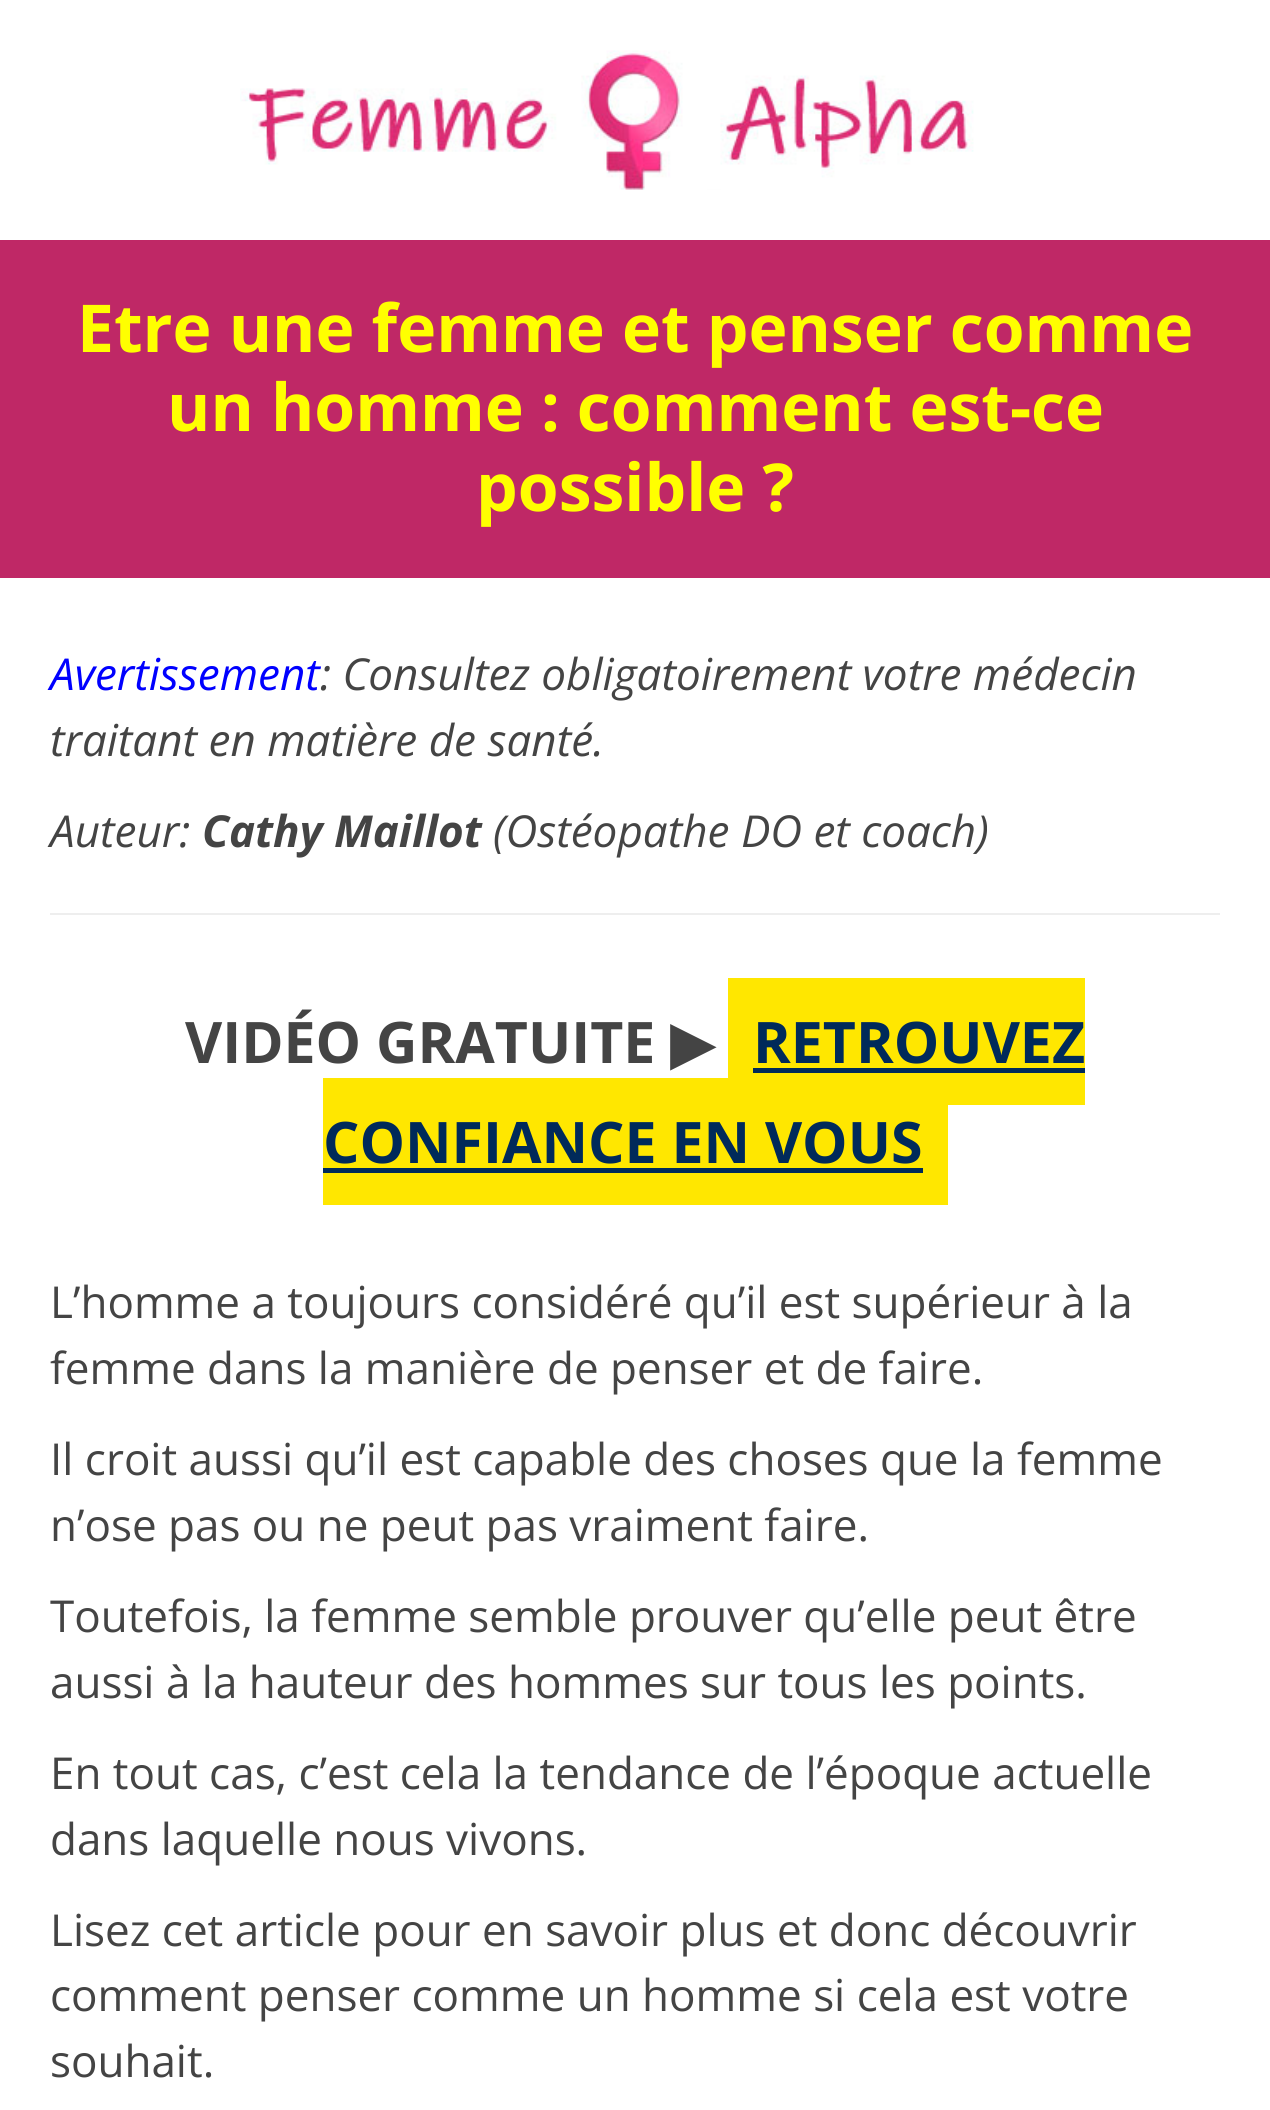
import math
import cairo

surface = cairo.ImageSurface(cairo.FORMAT_RGB24, 1270, 2110)
ctx = cairo.Context(surface)
options = cairo.FontOptions()
options.set_hint_metrics(cairo.HINT_METRICS_OFF)
options.set_hint_style(cairo.HINT_STYLE_NONE)
ctx.set_font_options(options)
ctx.set_miter_limit(4)


def picture(path, x, y, w, h):
    ctx.save()
    ctx.set_source_surface(cairo.ImageSurface.create_from_png(path), x, y)
    ctx.rectangle(x, y, w, h)
    ctx.fill()
    ctx.restore()


ctx.set_source_rgb(1, 1, 1)
ctx.paint()
picture("img1.png", 240, 50, 734, 140)
ctx.set_source_rgb(0.749, 0.157, 0.4)
ctx.rectangle(0, 240, 1270, 338)
ctx.fill()
ctx.select_font_face("Open Sans", cairo.FONT_SLANT_NORMAL, cairo.FONT_WEIGHT_BOLD)
ctx.set_font_size(66)
ctx.set_source_rgb(1, 1, 0)
ctx.move_to(77, 352)
ctx.show_text("Etre une femme et penser comme")
ctx.move_to(167, 431)
ctx.show_text("un homme : comment est-ce")
ctx.move_to(476, 511)
ctx.show_text("possible ?")
ctx.select_font_face("Open Sans", cairo.FONT_SLANT_ITALIC)
ctx.set_font_size(44)
ctx.set_source_rgb(0, 0, 1)
ctx.move_to(50, 690)
ctx.show_text("Avertissement")
ctx.set_source_rgb(0.267, 0.267, 0.267)
ctx.move_to(320, 690)
ctx.show_text(": Consultez obligatoirement votre médecin")
ctx.move_to(50, 756)
ctx.show_text("traitant en matière de santé.")
ctx.move_to(50, 847)
ctx.show_text("Auteur:")
ctx.select_font_face("Open Sans", cairo.FONT_SLANT_ITALIC, cairo.FONT_WEIGHT_BOLD)
ctx.move_to(202, 847)
ctx.show_text("Cathy Maillot")
ctx.select_font_face("Open Sans", cairo.FONT_SLANT_ITALIC)
ctx.move_to(493, 847)
ctx.show_text("(Ostéopathe DO et coach)")
ctx.set_source_rgb(0.933, 0.933, 0.933)
ctx.rectangle(50, 913, 1170, 2)
ctx.fill()
ctx.select_font_face("Open Sans", cairo.FONT_SLANT_NORMAL, cairo.FONT_WEIGHT_BOLD)
ctx.set_font_size(57.25)
ctx.set_source_rgb(0.267, 0.267, 0.267)
ctx.move_to(185, 1063)
ctx.show_text("VIDÉO GRATUITE")
ctx.select_font_face("DejaVu Sans", cairo.FONT_SLANT_NORMAL, cairo.FONT_WEIGHT_BOLD)
ctx.move_to(670, 1063)
ctx.show_text("▶")
ctx.set_source_rgb(1, 0.906, 0)
ctx.rectangle(728, 978, 357, 127)
ctx.fill()
ctx.select_font_face("Open Sans", cairo.FONT_SLANT_NORMAL, cairo.FONT_WEIGHT_BOLD)
ctx.set_source_rgb(0, 0.165, 0.353)
ctx.move_to(753, 1063)
ctx.show_text("RETROUVEZ")
ctx.rectangle(753, 1068, 332, 5)
ctx.fill()
ctx.set_source_rgb(1, 0.906, 0)
ctx.rectangle(323, 1078, 625, 127)
ctx.fill()
ctx.set_source_rgb(0, 0.165, 0.353)
ctx.move_to(323, 1163)
ctx.show_text("CONFIANCE EN VOUS")
ctx.rectangle(323, 1168, 600, 5)
ctx.fill()
ctx.select_font_face("Open Sans")
ctx.set_font_size(44)
ctx.set_source_rgb(0.267, 0.267, 0.267)
ctx.move_to(50, 1318)
ctx.show_text("L’homme a toujours considéré qu’il est supérieur à la")
ctx.move_to(50, 1384)
ctx.show_text("femme dans la manière de penser et de faire.")
ctx.move_to(50, 1475)
ctx.show_text("Il croit aussi qu’il est capable des choses que la femme")
ctx.move_to(50, 1541)
ctx.show_text("n’ose pas ou ne peut pas vraiment faire.")
ctx.move_to(50, 1632)
ctx.show_text("Toutefois, la femme semble prouver qu’elle peut être")
ctx.move_to(50, 1698)
ctx.show_text("aussi à la hauteur des hommes sur tous les points.")
ctx.move_to(50, 1789)
ctx.show_text("En tout cas, c’est cela la tendance de l’époque actuelle")
ctx.move_to(50, 1855)
ctx.show_text("dans laquelle nous vivons.")
ctx.move_to(50, 1946)
ctx.show_text("Lisez cet article pour en savoir plus et donc découvrir")
ctx.move_to(50, 2011)
ctx.show_text("comment penser comme un homme si cela est votre")
ctx.move_to(50, 2077)
ctx.show_text("souhait.")
surface.write_to_png("page.png")
